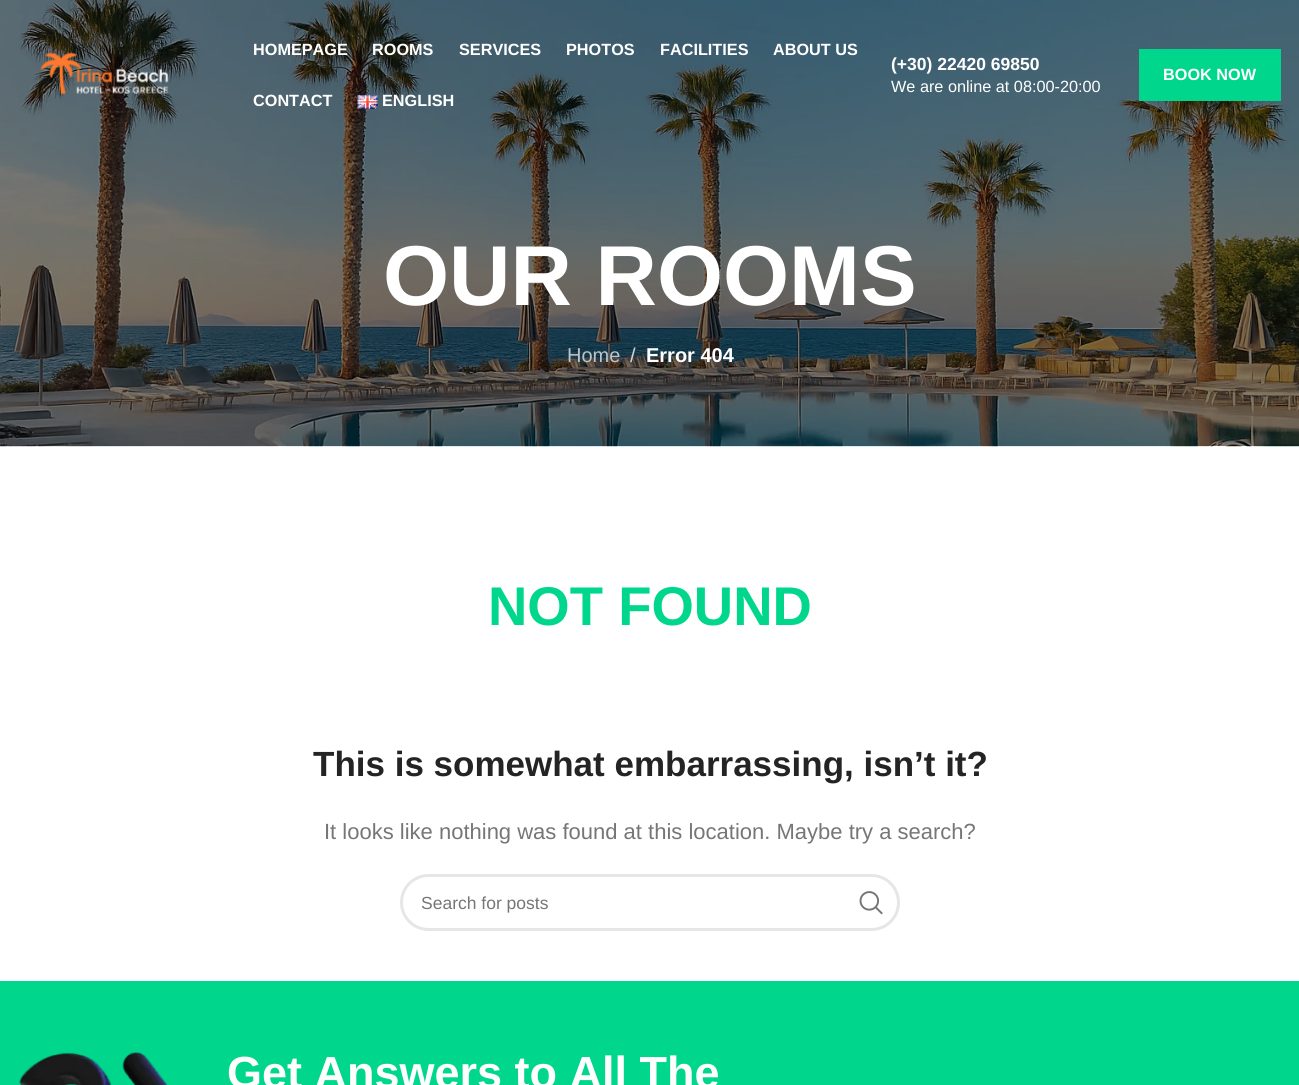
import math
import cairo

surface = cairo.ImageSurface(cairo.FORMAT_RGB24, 1299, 1085)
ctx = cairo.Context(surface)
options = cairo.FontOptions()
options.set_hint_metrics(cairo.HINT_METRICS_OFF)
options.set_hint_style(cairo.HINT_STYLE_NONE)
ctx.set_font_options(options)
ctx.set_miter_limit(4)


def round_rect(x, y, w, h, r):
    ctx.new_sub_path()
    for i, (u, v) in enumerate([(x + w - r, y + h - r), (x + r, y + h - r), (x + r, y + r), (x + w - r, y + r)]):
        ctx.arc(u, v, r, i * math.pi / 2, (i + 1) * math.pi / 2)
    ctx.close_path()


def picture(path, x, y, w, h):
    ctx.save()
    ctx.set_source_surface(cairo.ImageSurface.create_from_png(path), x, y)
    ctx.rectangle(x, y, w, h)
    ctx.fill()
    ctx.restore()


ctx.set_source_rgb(1, 1, 1)
ctx.paint()
picture("img4.png", 0, 0, 1299, 447)
picture("img1.png", 40, 52, 129, 43)
ctx.select_font_face("Liberation Sans", cairo.FONT_SLANT_NORMAL, cairo.FONT_WEIGHT_BOLD)
ctx.set_font_size(16.25)
ctx.set_source_rgb(1, 1, 1)
ctx.move_to(253, 55)
ctx.show_text("HOMEPAGE")
ctx.move_to(372, 55)
ctx.show_text("ROOMS")
ctx.move_to(459, 55)
ctx.show_text("SERVICES")
ctx.move_to(566, 55)
ctx.show_text("PHOTOS")
ctx.move_to(660, 55)
ctx.show_text("FACILITIES")
ctx.move_to(773, 55)
ctx.show_text("ABOUT US")
ctx.move_to(253, 106)
ctx.show_text("CONTACT")
picture("img2.png", 357, 94, 21, 15)
ctx.move_to(382, 106)
ctx.show_text("ENGLISH")
picture("img3.png", 459, 98, 7, 4)
ctx.set_font_size(17.5)
ctx.move_to(891, 70)
ctx.show_text("(+30) 22420 69850")
ctx.select_font_face("Liberation Sans")
ctx.set_font_size(16.25)
ctx.move_to(891, 92)
ctx.show_text("We are online at 08:00-20:00")
ctx.set_source_rgb(0, 0.843, 0.553)
ctx.rectangle(1139, 49, 142, 52)
ctx.fill()
ctx.select_font_face("Liberation Sans", cairo.FONT_SLANT_NORMAL, cairo.FONT_WEIGHT_BOLD)
ctx.set_source_rgb(1, 1, 1)
ctx.move_to(1163, 80)
ctx.show_text("BOOK NOW")
ctx.set_font_size(85)
ctx.move_to(383, 305)
ctx.show_text("OUR ROOMS")
ctx.select_font_face("Liberation Sans")
ctx.set_font_size(20)
ctx.set_source_rgb(0.745, 0.769, 0.78)
ctx.move_to(567, 362)
ctx.show_text("Home")
ctx.set_source_rgb(0.831, 0.847, 0.851)
ctx.move_to(630, 362)
ctx.show_text("/")
ctx.select_font_face("Liberation Sans", cairo.FONT_SLANT_NORMAL, cairo.FONT_WEIGHT_BOLD)
ctx.set_source_rgb(1, 1, 1)
ctx.move_to(646, 362)
ctx.show_text("Error 404")
ctx.set_font_size(54.5)
ctx.set_source_rgb(0, 0.843, 0.553)
ctx.move_to(488, 625)
ctx.show_text("NOT FOUND")
ctx.set_font_size(35)
ctx.set_source_rgb(0.141, 0.141, 0.141)
ctx.move_to(313, 776)
ctx.show_text("This is somewhat embarrassing, isn’t it?")
ctx.select_font_face("Liberation Sans")
ctx.set_font_size(22)
ctx.set_source_rgb(0.463, 0.463, 0.463)
ctx.move_to(324, 839)
ctx.show_text("It looks like nothing was found at this location. Maybe try a search?")
round_rect(401.5, 875.5, 497, 54, 27)
ctx.set_source_rgb(0.902, 0.902, 0.902)
ctx.set_line_width(3)
ctx.stroke()
ctx.set_font_size(17.5)
ctx.set_source_rgb(0.463, 0.463, 0.463)
ctx.move_to(421, 909)
ctx.show_text("Search for posts")
picture("img5.png", 859, 891, 24, 24)
ctx.set_source_rgb(0, 0.843, 0.553)
ctx.rectangle(0, 981, 1299, 104)
ctx.fill()
picture("img6.png", 19, 1052, 149, 33)
ctx.select_font_face("Liberation Sans", cairo.FONT_SLANT_NORMAL, cairo.FONT_WEIGHT_BOLD)
ctx.set_font_size(45)
ctx.set_source_rgb(1, 1, 1)
ctx.move_to(227, 1088)
ctx.show_text("Get Answers to All The")
surface.write_to_png("page.png")
